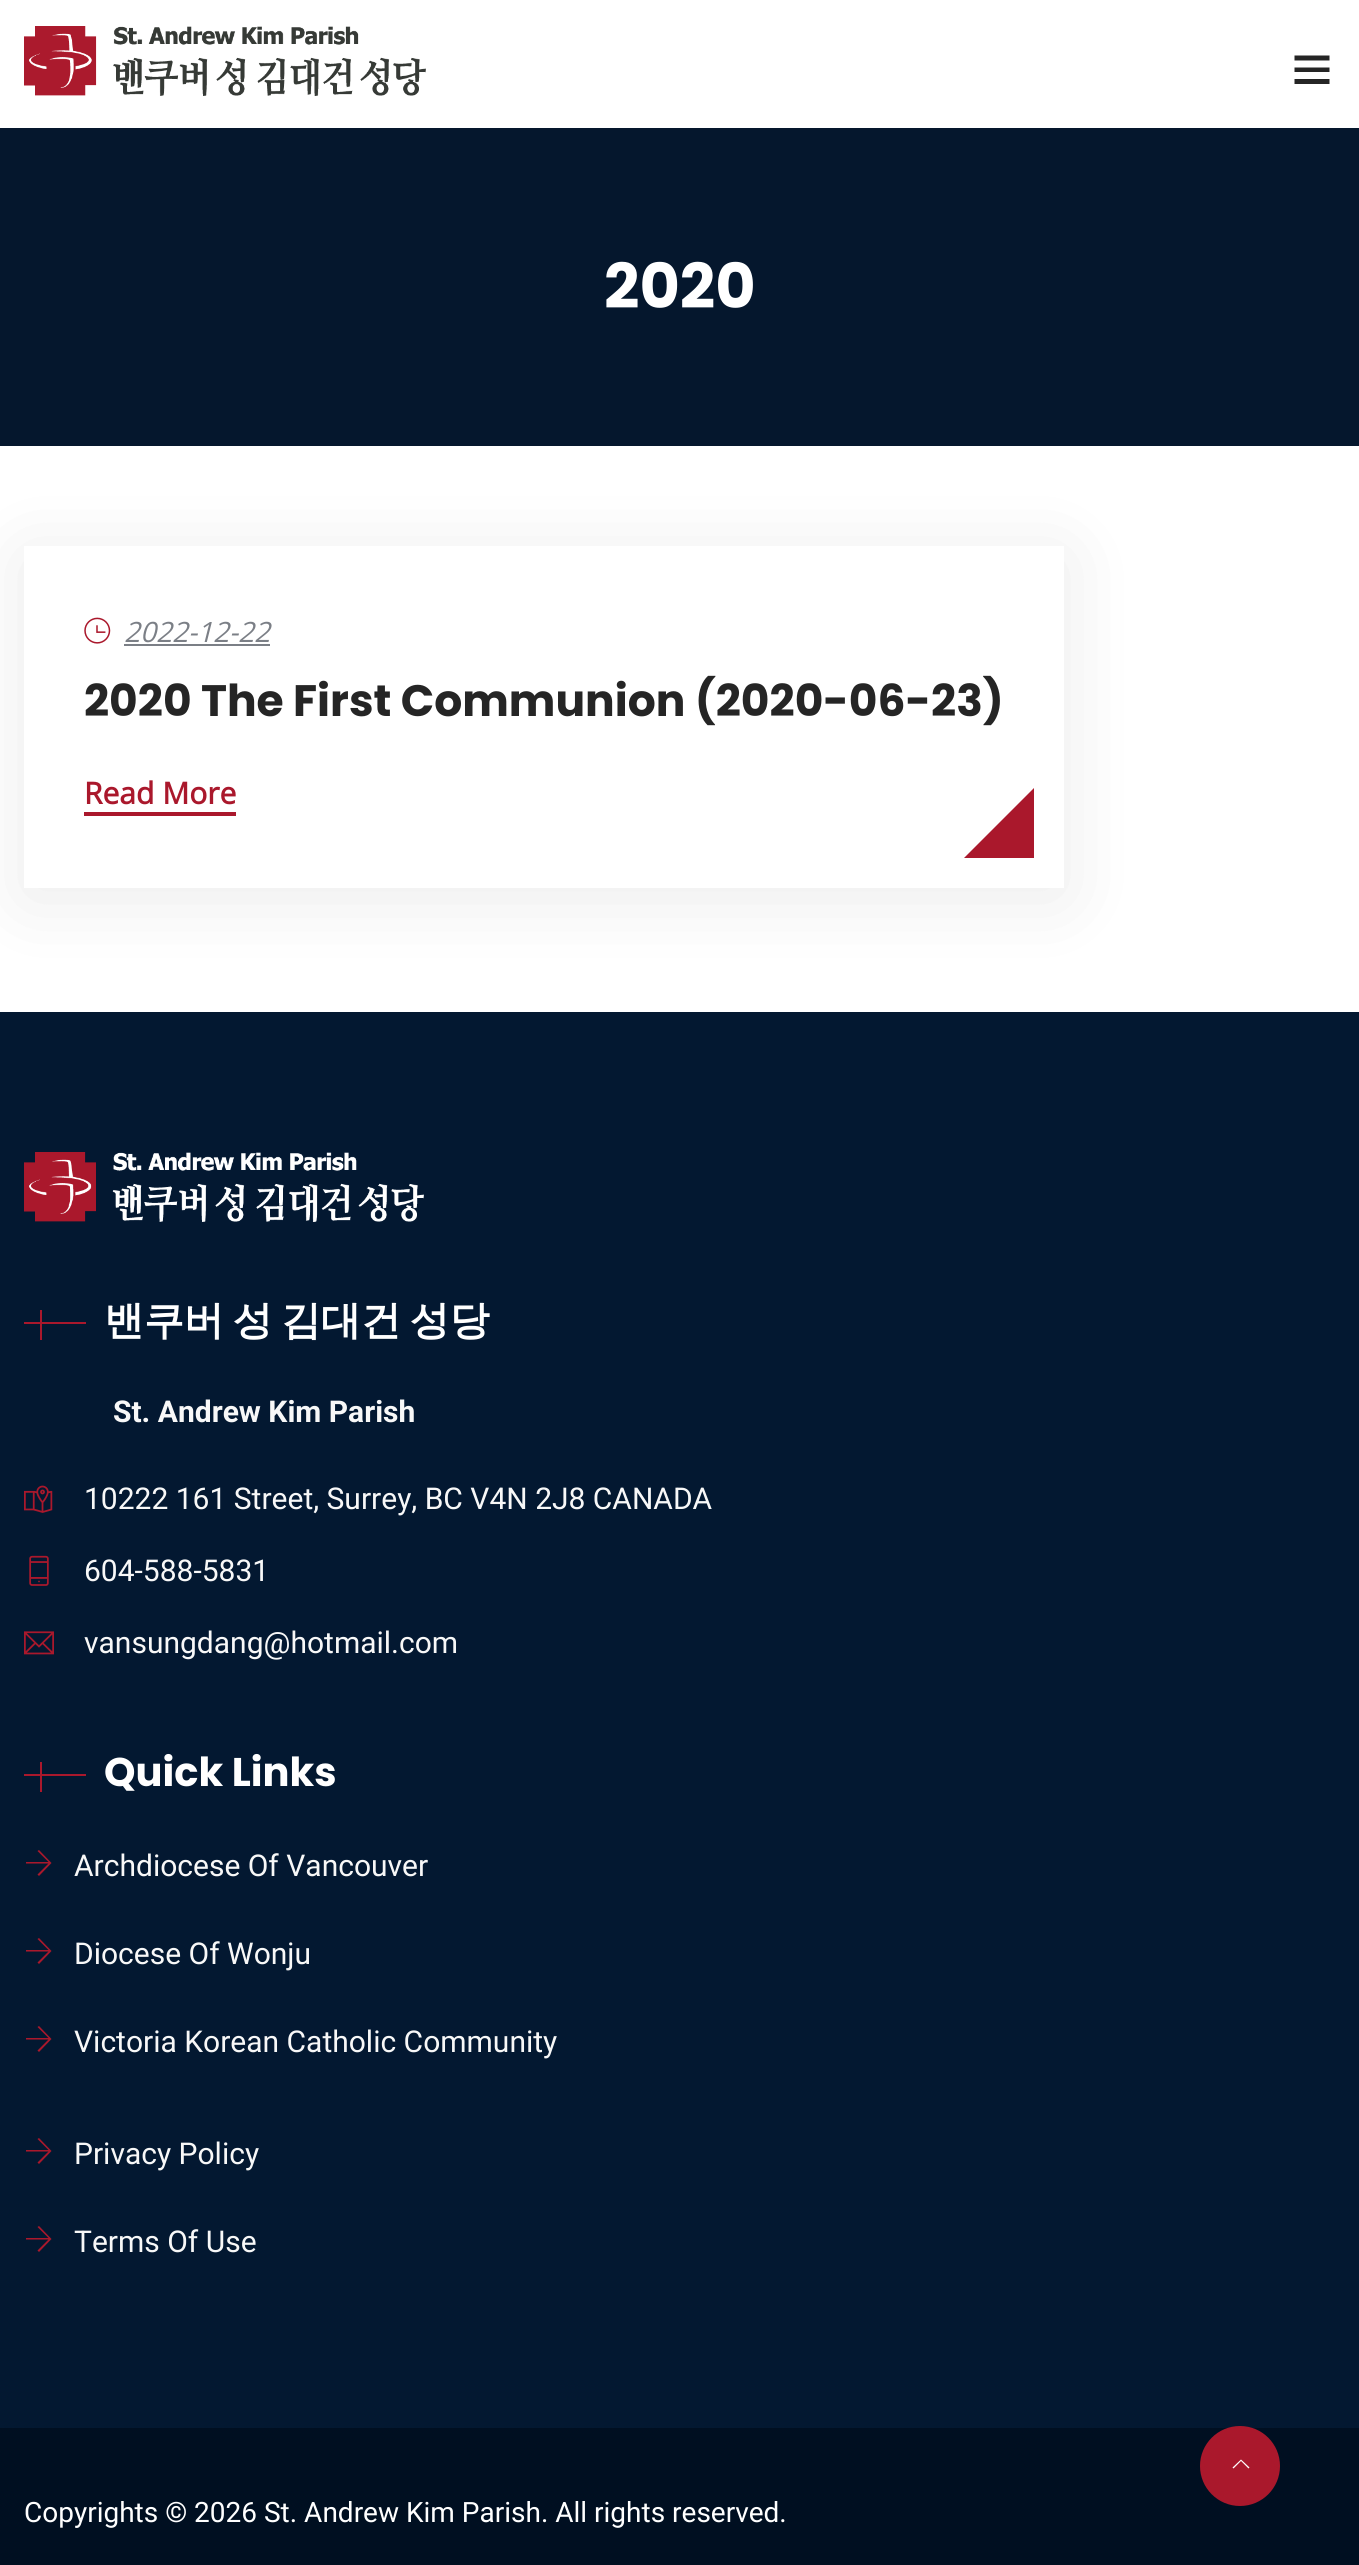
import math
import cairo

surface = cairo.ImageSurface(cairo.FORMAT_RGB24, 1359, 2565)
ctx = cairo.Context(surface)
options = cairo.FontOptions()
options.set_hint_metrics(cairo.HINT_METRICS_OFF)
options.set_hint_style(cairo.HINT_STYLE_NONE)
ctx.set_font_options(options)
ctx.set_miter_limit(4)


def spaced_text(x, y, s, letter, word):
    ctx.move_to(x, y)
    for ch in s:
        ctx.show_text(ch)
        ctx.rel_move_to(letter + word * (ch == ' '), 0)


def round_rect(x, y, w, h, r):
    ctx.new_sub_path()
    for i, (u, v) in enumerate([(x + w - r, y + h - r), (x + r, y + h - r), (x + r, y + r), (x + w - r, y + r)]):
        ctx.arc(u, v, r, i * math.pi / 2, (i + 1) * math.pi / 2)
    ctx.close_path()


def shadow(x, y, w, h, r, blur, alpha):
    ctx.push_group_with_content(cairo.CONTENT_ALPHA)
    ctx.set_operator(cairo.OPERATOR_SOURCE)
    for i in range(15, -16, -2):
        e = blur * i / 6
        if min(w, h) + 2 * e > 0:
            ctx.set_source_rgba(0, 0, 0, alpha * math.erfc((i - 1) / 8.5) / 2)
            round_rect(x - e, y - e, w + 2 * e, h + 2 * e, max(0, min(r + e + blur * .6, min(w, h) / 2 + e)))
            ctx.fill()
    ctx.mask(ctx.pop_group())


def picture(path, x, y, w, h):
    ctx.save()
    ctx.set_source_surface(cairo.ImageSurface.create_from_png(path), x, y)
    ctx.rectangle(x, y, w, h)
    ctx.fill()
    ctx.restore()


ctx.set_source_rgb(1, 1, 1)
ctx.paint()
picture("img1.png", 24, 26, 402, 70)
ctx.set_source_rgb(0.145, 0.145, 0.145)
ctx.new_path()
ctx.move_to(1329.5, 55.5)
ctx.line_to(1329.5, 60.5)
ctx.line_to(1294.5, 60.5)
ctx.line_to(1294.5, 55.5)
ctx.close_path()
ctx.move_to(1294.5, 72)
ctx.line_to(1329.5, 72)
ctx.line_to(1329.5, 67.5)
ctx.line_to(1294.5, 67.5)
ctx.close_path()
ctx.move_to(1294.5, 84)
ctx.line_to(1329.5, 84)
ctx.line_to(1329.5, 79)
ctx.line_to(1294.5, 79)
ctx.close_path()
ctx.fill()
ctx.set_source_rgb(0.02, 0.09, 0.176)
ctx.rectangle(0, 128, 1359, 318)
ctx.fill()
ctx.select_font_face("Poppins", cairo.FONT_SLANT_NORMAL, cairo.FONT_WEIGHT_BOLD)
ctx.set_font_size(62)
ctx.set_source_rgb(1, 1, 1)
ctx.move_to(604, 308)
ctx.show_text("2020")
ctx.set_source_rgb(0.012, 0.094, 0.192)
ctx.rectangle(0, 1012, 1359, 1416)
ctx.fill()
ctx.save()
ctx.set_fill_rule(cairo.FILL_RULE_EVEN_ODD)
ctx.new_path()
ctx.move_to(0, 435)
ctx.line_to(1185, 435)
ctx.line_to(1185, 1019)
ctx.line_to(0, 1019)
ctx.close_path()
ctx.move_to(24, 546)
ctx.line_to(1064, 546)
ctx.line_to(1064, 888)
ctx.line_to(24, 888)
ctx.close_path()
ctx.clip()
ctx.set_source_rgb(0, 0, 0)
shadow(24, 556, 1040, 342, 0, 40, 0.08)
ctx.restore()
picture("img2.png", 84, 617, 27, 27)
ctx.select_font_face("Open Sans", cairo.FONT_SLANT_ITALIC)
ctx.set_font_size(28)
ctx.set_source_rgb(0.482, 0.498, 0.525)
ctx.move_to(124, 642)
ctx.show_text("2022-12-22")
ctx.rectangle(124, 644, 146, 2)
ctx.fill()
ctx.select_font_face("Poppins", cairo.FONT_SLANT_NORMAL, cairo.FONT_WEIGHT_BOLD)
ctx.set_font_size(44)
ctx.set_source_rgb(0.145, 0.145, 0.145)
ctx.move_to(84, 716)
ctx.show_text("2020 The First Communion (2020-06-23)")
ctx.select_font_face("Open Sans", cairo.FONT_SLANT_NORMAL, cairo.FONT_WEIGHT_BOLD)
ctx.set_font_size(30)
ctx.set_source_rgb(0.667, 0.094, 0.173)
ctx.move_to(84, 804)
ctx.show_text("Read More")
ctx.rectangle(84, 812, 152, 4)
ctx.fill()
ctx.new_path()
ctx.move_to(1034, 858)
ctx.line_to(964, 858)
ctx.line_to(1034, 788)
ctx.close_path()
ctx.fill()
picture("img3.png", 24, 1152, 400, 70)
ctx.rectangle(24, 1322, 62, 2)
ctx.fill()
ctx.rectangle(40, 1310, 2, 30)
ctx.fill()
ctx.select_font_face("WenQuanYi Zen Hei", cairo.FONT_SLANT_NORMAL, cairo.FONT_WEIGHT_BOLD)
ctx.set_font_size(40)
ctx.set_source_rgb(1, 1, 1)
spaced_text(104, 1334, "밴쿠버 성 김대건 성당", 0, -3.5)
ctx.select_font_face("Roboto", cairo.FONT_SLANT_NORMAL, cairo.FONT_WEIGHT_BOLD)
ctx.set_font_size(30)
ctx.set_source_rgb(0.969, 0.969, 0.969)
ctx.move_to(113, 1422)
ctx.show_text("St. Andrew Kim Parish")
picture("img4.png", 24, 1485, 29, 28)
ctx.select_font_face("Roboto")
ctx.move_to(84, 1509)
ctx.show_text("10222 161 Street, Surrey, BC V4N 2J8 CANADA")
picture("img5.png", 29, 1555, 20, 31)
ctx.move_to(84, 1581)
ctx.show_text("604-588-5831")
picture("img6.png", 24, 1631, 30, 24)
ctx.move_to(84, 1653)
ctx.show_text("vansungdang@hotmail.com")
ctx.set_source_rgb(0.667, 0.094, 0.173)
ctx.rectangle(24, 1774, 62, 2)
ctx.fill()
ctx.rectangle(40, 1762, 2, 30)
ctx.fill()
ctx.select_font_face("Poppins", cairo.FONT_SLANT_NORMAL, cairo.FONT_WEIGHT_BOLD)
ctx.set_font_size(40)
ctx.set_source_rgb(1, 1, 1)
ctx.move_to(104, 1786)
ctx.show_text("Quick Links")
ctx.select_font_face("Roboto")
ctx.set_font_size(30)
ctx.set_source_rgb(0.969, 0.969, 0.969)
ctx.move_to(74, 1876)
ctx.show_text("Archdiocese Of Vancouver")
ctx.set_source_rgb(0.667, 0.094, 0.173)
ctx.new_path()
ctx.move_to(51.5, 1863)
ctx.line_to(39, 1876)
ctx.line_to(37.5, 1874.5)
ctx.line_to(48.5, 1863.5)
ctx.line_to(26, 1863.5)
ctx.line_to(26, 1862)
ctx.line_to(48.5, 1862)
ctx.line_to(37.5, 1851)
ctx.line_to(39, 1850)
ctx.close_path()
ctx.fill()
ctx.set_source_rgb(0.969, 0.969, 0.969)
ctx.move_to(74, 1964)
ctx.show_text("Diocese Of Wonju")
ctx.set_source_rgb(0.667, 0.094, 0.173)
ctx.new_path()
ctx.move_to(51.5, 1951)
ctx.line_to(39, 1964)
ctx.line_to(37.5, 1962.5)
ctx.line_to(48.5, 1951.5)
ctx.line_to(26, 1951.5)
ctx.line_to(26, 1950)
ctx.line_to(48.5, 1950)
ctx.line_to(37.5, 1939)
ctx.line_to(39, 1938)
ctx.close_path()
ctx.fill()
ctx.set_source_rgb(0.969, 0.969, 0.969)
ctx.move_to(74, 2052)
ctx.show_text("Victoria Korean Catholic Community")
ctx.set_source_rgb(0.667, 0.094, 0.173)
ctx.new_path()
ctx.move_to(51.5, 2039)
ctx.line_to(39, 2052)
ctx.line_to(37.5, 2050.5)
ctx.line_to(48.5, 2039.5)
ctx.line_to(26, 2039.5)
ctx.line_to(26, 2038)
ctx.line_to(48.5, 2038)
ctx.line_to(37.5, 2027)
ctx.line_to(39, 2026)
ctx.close_path()
ctx.fill()
ctx.set_source_rgb(0.969, 0.969, 0.969)
ctx.move_to(74, 2164)
ctx.show_text("Privacy Policy")
ctx.set_source_rgb(0.667, 0.094, 0.173)
ctx.new_path()
ctx.move_to(51.5, 2151)
ctx.line_to(39, 2164)
ctx.line_to(37.5, 2162.5)
ctx.line_to(48.5, 2151.5)
ctx.line_to(26, 2151.5)
ctx.line_to(26, 2150)
ctx.line_to(48.5, 2150)
ctx.line_to(37.5, 2139)
ctx.line_to(39, 2138)
ctx.close_path()
ctx.fill()
ctx.set_source_rgb(0.969, 0.969, 0.969)
ctx.move_to(74, 2252)
ctx.show_text("Terms Of Use")
ctx.set_source_rgb(0.667, 0.094, 0.173)
ctx.new_path()
ctx.move_to(51.5, 2239)
ctx.line_to(39, 2252)
ctx.line_to(37.5, 2250.5)
ctx.line_to(48.5, 2239.5)
ctx.line_to(26, 2239.5)
ctx.line_to(26, 2238)
ctx.line_to(48.5, 2238)
ctx.line_to(37.5, 2227)
ctx.line_to(39, 2226)
ctx.close_path()
ctx.fill()
ctx.set_source_rgb(0, 0.059, 0.129)
ctx.rectangle(0, 2428, 1359, 137)
ctx.fill()
ctx.set_source_rgb(0.667, 0.094, 0.173)
ctx.arc(1240, 2466, 40, 0, 2 * math.pi)
ctx.fill()
ctx.set_source_rgb(1, 1, 1)
ctx.new_path()
ctx.move_to(1249.5, 2467.5)
ctx.line_to(1248.5, 2468.5)
ctx.line_to(1241, 2461)
ctx.line_to(1233.5, 2468.5)
ctx.line_to(1232.5, 2467.5)
ctx.line_to(1241, 2459.5)
ctx.close_path()
ctx.fill()
ctx.set_font_size(28)
ctx.move_to(24, 2522)
ctx.show_text("Copyrights © 2026 St. Andrew Kim Parish. All rights reserved.")
surface.write_to_png("page.png")
